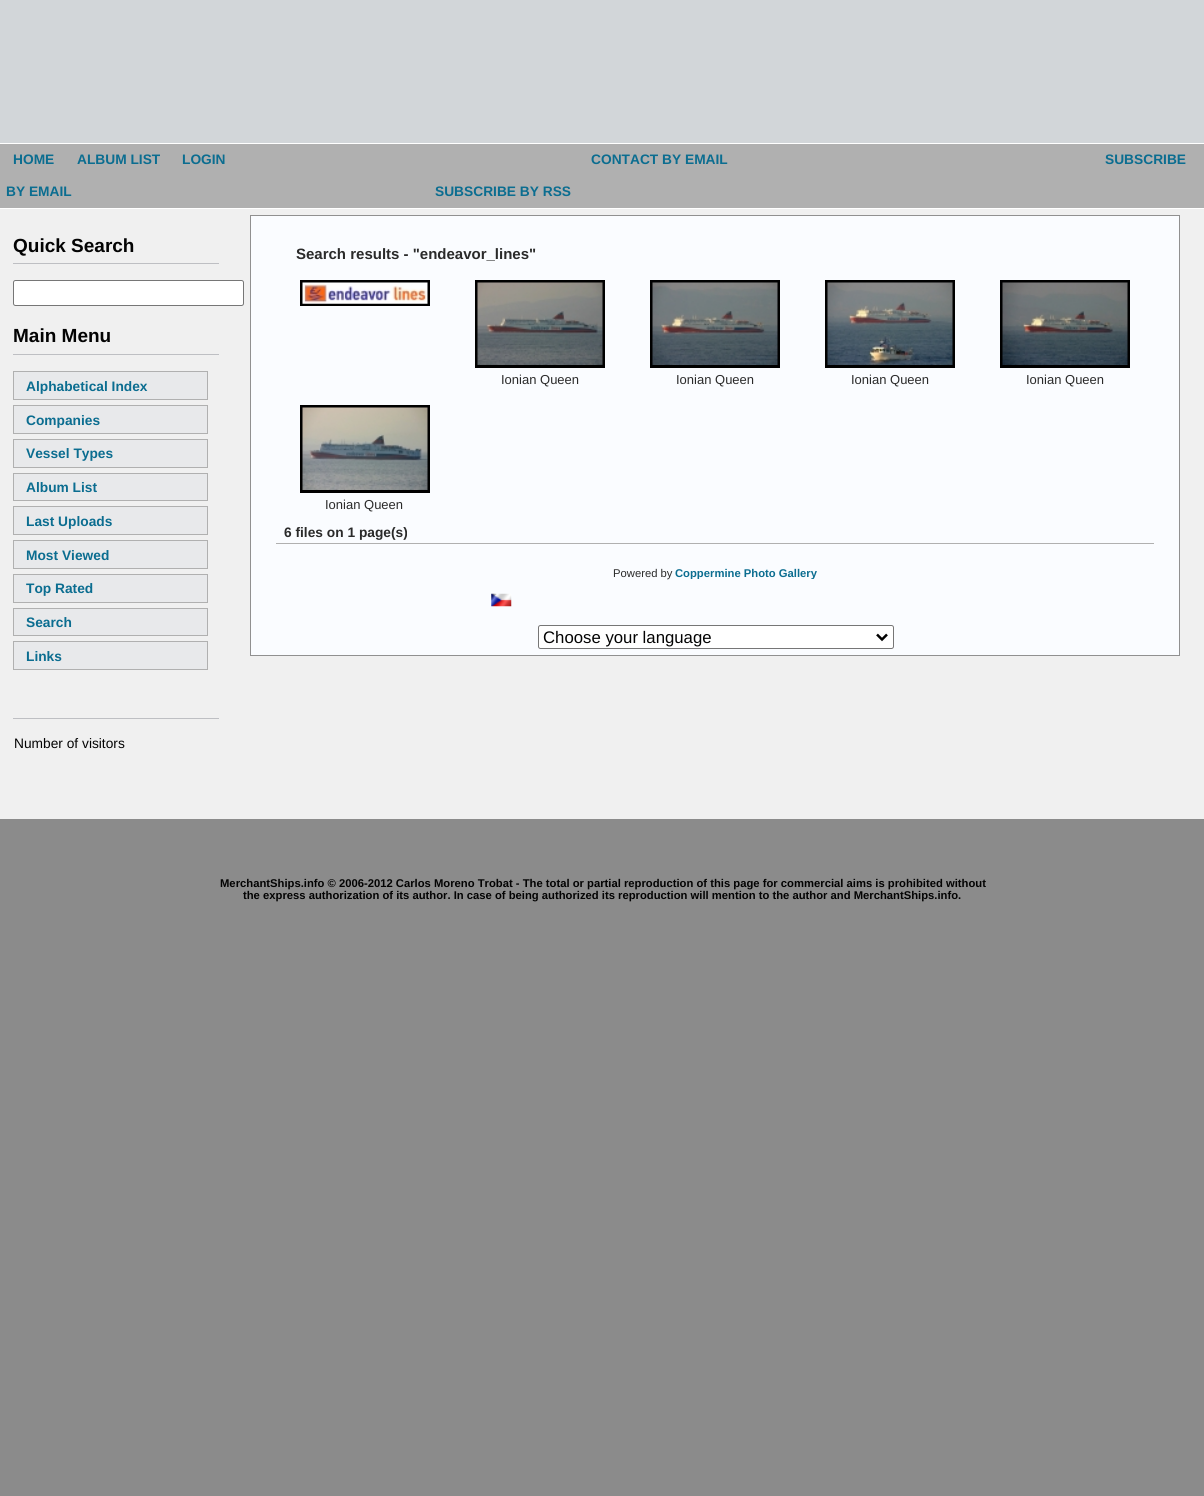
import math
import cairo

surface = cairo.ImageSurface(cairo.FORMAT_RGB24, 1204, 1496)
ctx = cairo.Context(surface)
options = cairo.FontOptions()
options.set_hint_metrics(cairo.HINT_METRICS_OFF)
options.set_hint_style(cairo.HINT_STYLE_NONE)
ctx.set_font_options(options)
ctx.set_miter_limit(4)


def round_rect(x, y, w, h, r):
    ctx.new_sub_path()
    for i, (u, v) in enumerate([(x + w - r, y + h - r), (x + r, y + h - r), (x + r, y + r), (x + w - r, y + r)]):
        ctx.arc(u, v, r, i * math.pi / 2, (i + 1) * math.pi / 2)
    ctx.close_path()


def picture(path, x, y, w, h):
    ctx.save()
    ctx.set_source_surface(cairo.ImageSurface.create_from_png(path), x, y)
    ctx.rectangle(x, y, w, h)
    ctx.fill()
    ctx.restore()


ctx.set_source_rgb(0.545, 0.545, 0.545)
ctx.paint()
ctx.set_source_rgb(0.941, 0.941, 0.941)
ctx.rectangle(0, 209, 1204, 610)
ctx.fill()
ctx.set_source_rgb(0.824, 0.839, 0.851)
ctx.rectangle(0, 0, 1204, 143)
ctx.fill()
ctx.set_source_rgb(0.69, 0.69, 0.69)
ctx.rectangle(0, 144, 1204, 64)
ctx.fill()
ctx.set_source_rgb(1, 1, 1)
ctx.rectangle(0, 143, 1204, 1)
ctx.fill()
ctx.rectangle(0, 208, 1204, 1)
ctx.fill()
ctx.select_font_face("Liberation Sans", cairo.FONT_SLANT_NORMAL, cairo.FONT_WEIGHT_BOLD)
ctx.set_font_size(13.75)
ctx.set_source_rgb(0.043, 0.427, 0.565)
ctx.move_to(13, 164)
ctx.show_text("HOME")
ctx.move_to(77, 164)
ctx.show_text("ALBUM LIST")
ctx.move_to(182, 164)
ctx.show_text("LOGIN")
ctx.move_to(591, 164)
ctx.show_text("CONTACT BY EMAIL")
ctx.move_to(1105, 164)
ctx.show_text("SUBSCRIBE")
ctx.move_to(6, 196)
ctx.show_text("BY EMAIL")
ctx.move_to(435, 196)
ctx.show_text("SUBSCRIBE BY RSS")
ctx.set_source_rgb(0.745, 0.749, 0.765)
ctx.rectangle(13, 263, 206, 1)
ctx.fill()
ctx.set_font_size(19)
ctx.set_source_rgb(0.012, 0.012, 0.012)
ctx.move_to(13, 252)
ctx.show_text("Quick Search")
ctx.set_source_rgb(1, 1, 1)
round_rect(13.5, 280.5, 230, 25, 2)
ctx.fill_preserve()
ctx.set_source_rgb(0.463, 0.463, 0.463)
ctx.set_line_width(1)
ctx.stroke()
ctx.set_source_rgb(0.745, 0.749, 0.765)
ctx.rectangle(13, 354, 206, 1)
ctx.fill()
ctx.set_source_rgb(0.012, 0.012, 0.012)
ctx.move_to(13, 342)
ctx.show_text("Main Menu")
ctx.set_source_rgb(0.91, 0.914, 0.918)
ctx.rectangle(13.5, 371.5, 194, 28)
ctx.fill_preserve()
ctx.set_source_rgb(0.69, 0.69, 0.69)
ctx.stroke()
ctx.set_font_size(13.75)
ctx.set_source_rgb(0.043, 0.427, 0.565)
ctx.move_to(26, 391)
ctx.show_text("Alphabetical Index")
ctx.set_source_rgb(0.91, 0.914, 0.918)
ctx.rectangle(13.5, 405.5, 194, 28)
ctx.fill_preserve()
ctx.set_source_rgb(0.69, 0.69, 0.69)
ctx.stroke()
ctx.set_source_rgb(0.043, 0.427, 0.565)
ctx.move_to(26, 425)
ctx.show_text("Companies")
ctx.set_source_rgb(0.91, 0.914, 0.918)
ctx.rectangle(13.5, 439.5, 194, 28)
ctx.fill_preserve()
ctx.set_source_rgb(0.69, 0.69, 0.69)
ctx.stroke()
ctx.set_source_rgb(0.043, 0.427, 0.565)
ctx.move_to(26, 458)
ctx.show_text("Vessel Types")
ctx.set_source_rgb(0.91, 0.914, 0.918)
ctx.rectangle(13.5, 473.5, 194, 27)
ctx.fill_preserve()
ctx.set_source_rgb(0.69, 0.69, 0.69)
ctx.stroke()
ctx.set_source_rgb(0.043, 0.427, 0.565)
ctx.move_to(26, 492)
ctx.show_text("Album List")
ctx.set_source_rgb(0.91, 0.914, 0.918)
ctx.rectangle(13.5, 506.5, 194, 28)
ctx.fill_preserve()
ctx.set_source_rgb(0.69, 0.69, 0.69)
ctx.stroke()
ctx.set_source_rgb(0.043, 0.427, 0.565)
ctx.move_to(26, 526)
ctx.show_text("Last Uploads")
ctx.set_source_rgb(0.91, 0.914, 0.918)
ctx.rectangle(13.5, 540.5, 194, 28)
ctx.fill_preserve()
ctx.set_source_rgb(0.69, 0.69, 0.69)
ctx.stroke()
ctx.set_source_rgb(0.043, 0.427, 0.565)
ctx.move_to(26, 560)
ctx.show_text("Most Viewed")
ctx.set_source_rgb(0.91, 0.914, 0.918)
ctx.rectangle(13.5, 574.5, 194, 28)
ctx.fill_preserve()
ctx.set_source_rgb(0.69, 0.69, 0.69)
ctx.stroke()
ctx.set_source_rgb(0.043, 0.427, 0.565)
ctx.move_to(26, 593)
ctx.show_text("Top Rated")
ctx.set_source_rgb(0.91, 0.914, 0.918)
ctx.rectangle(13.5, 608.5, 194, 27)
ctx.fill_preserve()
ctx.set_source_rgb(0.69, 0.69, 0.69)
ctx.stroke()
ctx.set_source_rgb(0.043, 0.427, 0.565)
ctx.move_to(26, 627)
ctx.show_text("Search")
ctx.set_source_rgb(0.91, 0.914, 0.918)
ctx.rectangle(13.5, 641.5, 194, 28)
ctx.fill_preserve()
ctx.set_source_rgb(0.69, 0.69, 0.69)
ctx.stroke()
ctx.set_source_rgb(0.043, 0.427, 0.565)
ctx.move_to(26, 661)
ctx.show_text("Links")
ctx.set_source_rgb(0.745, 0.749, 0.765)
ctx.rectangle(13, 718, 206, 1)
ctx.fill()
ctx.select_font_face("Liberation Sans")
ctx.set_source_rgb(0.012, 0.012, 0.012)
ctx.move_to(14, 748)
ctx.show_text("Number of visitors")
ctx.set_source_rgb(0.98, 0.988, 1)
ctx.rectangle(250.5, 215.5, 929, 440)
ctx.fill_preserve()
ctx.set_source_rgb(0.565, 0.565, 0.565)
ctx.stroke()
ctx.set_source_rgb(0.69, 0.69, 0.69)
ctx.rectangle(276, 543, 878, 1)
ctx.fill()
ctx.select_font_face("Liberation Sans", cairo.FONT_SLANT_NORMAL, cairo.FONT_WEIGHT_BOLD)
ctx.set_font_size(15)
ctx.set_source_rgb(0.165, 0.165, 0.165)
ctx.move_to(296, 259)
ctx.show_text("Search results - \"endeavor_lines\"")
ctx.rectangle(301.5, 281.5, 127, 23)
ctx.set_source_rgb(0, 0, 0)
ctx.set_line_width(3)
ctx.stroke()
picture("img1.png", 302, 282, 126, 22)
ctx.rectangle(476.5, 281.5, 127, 85)
ctx.stroke()
picture("img2.png", 477, 282, 126, 83)
ctx.select_font_face("Liberation Sans")
ctx.set_font_size(13)
ctx.set_source_rgb(0.165, 0.165, 0.165)
ctx.move_to(501, 384)
ctx.show_text("Ionian Queen")
ctx.rectangle(651.5, 281.5, 127, 85)
ctx.set_source_rgb(0, 0, 0)
ctx.stroke()
picture("img3.png", 652, 282, 126, 83)
ctx.set_source_rgb(0.165, 0.165, 0.165)
ctx.move_to(676, 384)
ctx.show_text("Ionian Queen")
ctx.rectangle(826.5, 281.5, 127, 85)
ctx.set_source_rgb(0, 0, 0)
ctx.stroke()
picture("img4.png", 827, 282, 126, 83)
ctx.set_source_rgb(0.165, 0.165, 0.165)
ctx.move_to(851, 384)
ctx.show_text("Ionian Queen")
ctx.rectangle(1001.5, 281.5, 127, 85)
ctx.set_source_rgb(0, 0, 0)
ctx.stroke()
picture("img5.png", 1002, 282, 126, 83)
ctx.set_source_rgb(0.165, 0.165, 0.165)
ctx.move_to(1026, 384)
ctx.show_text("Ionian Queen")
ctx.rectangle(301.5, 406.5, 127, 85)
ctx.set_source_rgb(0, 0, 0)
ctx.stroke()
picture("img6.png", 302, 407, 126, 83)
ctx.set_source_rgb(0.165, 0.165, 0.165)
ctx.move_to(325, 509)
ctx.show_text("Ionian Queen")
ctx.select_font_face("Liberation Sans", cairo.FONT_SLANT_NORMAL, cairo.FONT_WEIGHT_BOLD)
ctx.set_font_size(13.75)
ctx.move_to(284, 537)
ctx.show_text("6 files on 1 page(s)")
ctx.select_font_face("Liberation Sans")
ctx.set_font_size(11.25)
ctx.move_to(613, 577)
ctx.show_text("Powered by")
ctx.save()
ctx.rectangle(276, 235, 878, 344)
ctx.clip()
ctx.select_font_face("Liberation Sans", cairo.FONT_SLANT_NORMAL, cairo.FONT_WEIGHT_BOLD)
ctx.set_source_rgb(0.043, 0.427, 0.565)
ctx.move_to(675, 577)
ctx.show_text("Coppermine Photo Gallery")
ctx.restore()
picture("img7.png", 491, 593, 21, 14)
ctx.set_source_rgb(1, 1, 1)
round_rect(538.5, 625.5, 355, 23, 2)
ctx.fill_preserve()
ctx.set_source_rgb(0.463, 0.463, 0.463)
ctx.set_line_width(1)
ctx.stroke()
ctx.new_path()
ctx.move_to(877, 634.5)
ctx.line_to(882, 639.5)
ctx.line_to(887, 634.5)
ctx.set_source_rgb(0, 0, 0)
ctx.set_line_width(2.5)
ctx.stroke()
ctx.set_font_size(16.75)
ctx.set_source_rgb(0.012, 0.012, 0.012)
ctx.move_to(543, 643)
ctx.show_text("Choose your language")
ctx.select_font_face("Liberation Sans", cairo.FONT_SLANT_NORMAL, cairo.FONT_WEIGHT_BOLD)
ctx.set_font_size(11.25)
ctx.move_to(220, 887)
ctx.show_text("MerchantShips.info © 2006-2012 Carlos Moreno Trobat - The total or partial reproduction of this page for commercial aims is prohibited without")
ctx.move_to(243, 899)
ctx.show_text("the express authorization of its author. In case of being authorized its reproduction will mention to the author and MerchantShips.info.")
surface.write_to_png("page.png")
